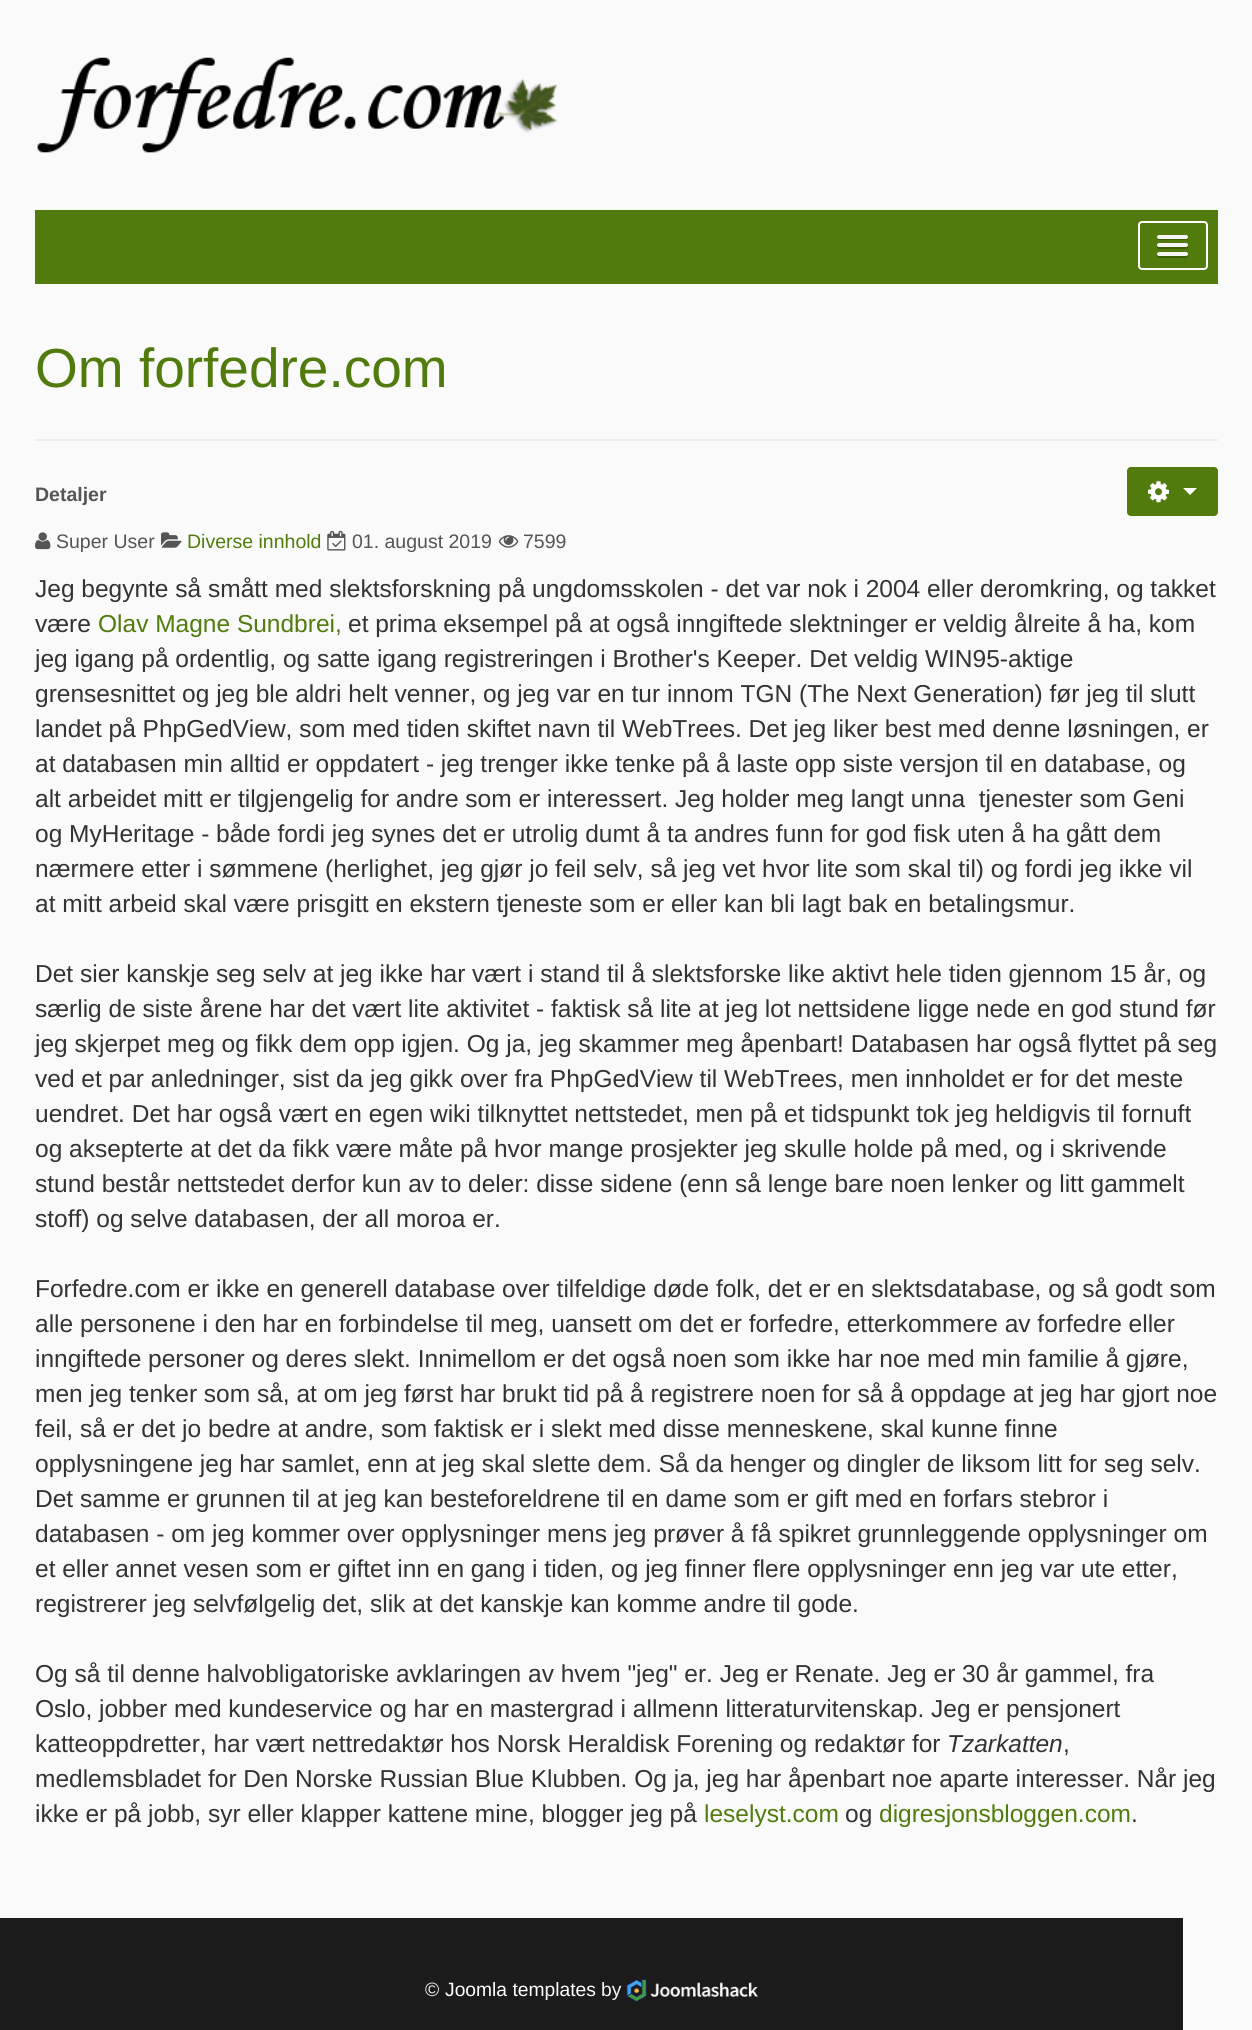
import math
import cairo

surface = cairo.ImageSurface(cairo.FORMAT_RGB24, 1252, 2030)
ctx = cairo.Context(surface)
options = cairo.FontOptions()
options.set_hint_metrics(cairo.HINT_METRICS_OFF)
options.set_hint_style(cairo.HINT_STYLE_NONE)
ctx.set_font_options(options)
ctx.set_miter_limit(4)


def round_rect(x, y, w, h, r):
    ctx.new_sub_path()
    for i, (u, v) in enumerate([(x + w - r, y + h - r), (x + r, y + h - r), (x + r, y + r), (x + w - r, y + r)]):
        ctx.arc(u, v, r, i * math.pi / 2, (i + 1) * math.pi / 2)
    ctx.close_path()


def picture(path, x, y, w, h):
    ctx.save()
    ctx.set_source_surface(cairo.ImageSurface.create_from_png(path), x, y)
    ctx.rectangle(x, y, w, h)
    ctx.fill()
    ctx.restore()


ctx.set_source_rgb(0.98, 0.98, 0.98)
ctx.paint()
picture("img1.png", 37, 57, 521, 96)
ctx.set_source_rgb(0.318, 0.482, 0.047)
ctx.rectangle(35, 210, 1183, 74)
ctx.fill()
round_rect(1139, 222, 68, 47, 3)
ctx.set_source_rgb(1, 1, 1)
ctx.stroke()
ctx.set_source_rgb(0.239, 0.361, 0.035)
ctx.new_path()
ctx.move_to(1157, 237.5)
ctx.curve_to(1156, 241, 1162.5, 240, 1163.5, 240)
ctx.line_to(1181.5, 240)
ctx.curve_to(1182.5, 240, 1189, 241, 1188, 237.5)
ctx.line_to(1186.5, 238)
ctx.line_to(1158.5, 238)
ctx.close_path()
ctx.fill()
ctx.set_source_rgb(0.961, 0.961, 0.961)
round_rect(1157, 235, 31, 4, 2)
ctx.fill()
ctx.set_source_rgb(0.239, 0.361, 0.035)
ctx.new_path()
ctx.move_to(1157, 246)
ctx.curve_to(1155.5, 250, 1162.5, 249, 1163.5, 249)
ctx.line_to(1181.5, 249)
ctx.curve_to(1182.5, 249, 1189.5, 250, 1188, 246)
ctx.line_to(1186.5, 246.5)
ctx.line_to(1158.5, 246.5)
ctx.close_path()
ctx.fill()
ctx.set_source_rgb(0.961, 0.961, 0.961)
round_rect(1157, 243, 31, 4, 2)
ctx.fill()
ctx.set_source_rgb(0.239, 0.361, 0.035)
ctx.new_path()
ctx.move_to(1157.5, 255)
ctx.curve_to(1155, 259, 1163, 258, 1163.5, 258)
ctx.line_to(1181.5, 258)
ctx.curve_to(1182, 258, 1190, 259, 1187.5, 255)
ctx.line_to(1186.5, 255.5)
ctx.line_to(1158.5, 255.5)
ctx.close_path()
ctx.fill()
ctx.set_source_rgb(0.961, 0.961, 0.961)
round_rect(1157, 252, 31, 4, 2)
ctx.fill()
ctx.set_source_rgb(0.933, 0.933, 0.933)
ctx.rectangle(35, 439, 1183, 2)
ctx.fill()
ctx.select_font_face("Arimo")
ctx.set_font_size(55)
ctx.set_source_rgb(0.318, 0.482, 0.047)
ctx.move_to(35, 387)
ctx.show_text("Om forfedre.com")
ctx.select_font_face("Arimo", cairo.FONT_SLANT_NORMAL, cairo.FONT_WEIGHT_BOLD)
ctx.set_font_size(19.5)
ctx.set_source_rgb(0.333, 0.333, 0.333)
ctx.move_to(35, 501)
ctx.show_text("Detaljer")
picture("img2.png", 35, 532, 16, 18)
ctx.select_font_face("Arimo")
ctx.move_to(56, 548)
ctx.show_text("Super User")
picture("img3.png", 161, 532, 21, 16)
ctx.set_source_rgb(0.318, 0.482, 0.047)
ctx.move_to(187, 548)
ctx.show_text("Diverse innhold")
picture("img4.png", 327, 530, 19, 21)
ctx.set_source_rgb(0.333, 0.333, 0.333)
ctx.move_to(352, 548)
ctx.show_text("01. august 2019")
picture("img5.png", 498, 535, 21, 13)
ctx.move_to(523, 548)
ctx.show_text("7599")
ctx.set_source_rgb(0.318, 0.482, 0.047)
round_rect(1127, 467, 91, 49, 4)
ctx.fill()
picture("img6.png", 1148, 481, 21, 22)
ctx.set_source_rgb(1, 1, 1)
ctx.new_path()
ctx.move_to(1183, 488)
ctx.line_to(1197, 488)
ctx.line_to(1190, 495)
ctx.close_path()
ctx.fill()
ctx.set_font_size(24.5)
ctx.set_source_rgb(0.2, 0.2, 0.2)
ctx.move_to(35, 597)
ctx.show_text("Jeg begynte så smått med slektsforskning på ungdomsskolen - det var nok i 2004 eller deromkring, og takket")
ctx.move_to(35, 632)
ctx.show_text("være")
ctx.set_source_rgb(0.318, 0.482, 0.047)
ctx.move_to(98, 632)
ctx.show_text("Olav Magne Sundbrei,")
ctx.set_source_rgb(0.2, 0.2, 0.2)
ctx.move_to(348, 632)
ctx.show_text("et prima eksempel på at også inngiftede slektninger er veldig ålreite å ha, kom")
ctx.move_to(35, 667)
ctx.show_text("jeg igang på ordentlig, og satte igang registreringen i Brother's Keeper. Det veldig WIN95-aktige")
ctx.move_to(35, 702)
ctx.show_text("grensesnittet og jeg ble aldri helt venner, og jeg var en tur innom TGN (The Next Generation) før jeg til slutt")
ctx.move_to(35, 737)
ctx.show_text("landet på PhpGedView, som med tiden skiftet navn til WebTrees. Det jeg liker best med denne løsningen, er")
ctx.move_to(35, 772)
ctx.show_text("at databasen min alltid er oppdatert - jeg trenger ikke tenke på å laste opp siste versjon til en database, og")
ctx.move_to(35, 807)
ctx.show_text("alt arbeidet mitt er tilgjengelig for andre som er interessert. Jeg holder meg langt unna  tjenester som Geni")
ctx.move_to(35, 842)
ctx.show_text("og MyHeritage - både fordi jeg synes det er utrolig dumt å ta andres funn for god fisk uten å ha gått dem")
ctx.move_to(35, 877)
ctx.show_text("nærmere etter i sømmene (herlighet, jeg gjør jo feil selv, så jeg vet hvor lite som skal til) og fordi jeg ikke vil")
ctx.move_to(35, 912)
ctx.show_text("at mitt arbeid skal være prisgitt en ekstern tjeneste som er eller kan bli lagt bak en betalingsmur.")
ctx.move_to(35, 982)
ctx.show_text("Det sier kanskje seg selv at jeg ikke har vært i stand til å slektsforske like aktivt hele tiden gjennom 15 år, og")
ctx.move_to(35, 1017)
ctx.show_text("særlig de siste årene har det vært lite aktivitet - faktisk så lite at jeg lot nettsidene ligge nede en god stund før")
ctx.move_to(35, 1052)
ctx.show_text("jeg skjerpet meg og fikk dem opp igjen. Og ja, jeg skammer meg åpenbart! Databasen har også flyttet på seg")
ctx.move_to(35, 1087)
ctx.show_text("ved et par anledninger, sist da jeg gikk over fra PhpGedView til WebTrees, men innholdet er for det meste")
ctx.move_to(35, 1122)
ctx.show_text("uendret. Det har også vært en egen wiki tilknyttet nettstedet, men på et tidspunkt tok jeg heldigvis til fornuft")
ctx.move_to(35, 1157)
ctx.show_text("og aksepterte at det da fikk være måte på hvor mange prosjekter jeg skulle holde på med, og i skrivende")
ctx.move_to(35, 1192)
ctx.show_text("stund består nettstedet derfor kun av to deler: disse sidene (enn så lenge bare noen lenker og litt gammelt")
ctx.move_to(35, 1227)
ctx.show_text("stoff) og selve databasen, der all moroa er.")
ctx.move_to(35, 1297)
ctx.show_text("Forfedre.com er ikke en generell database over tilfeldige døde folk, det er en slektsdatabase, og så godt som")
ctx.move_to(35, 1332)
ctx.show_text("alle personene i den har en forbindelse til meg, uansett om det er forfedre, etterkommere av forfedre eller")
ctx.move_to(35, 1367)
ctx.show_text("inngiftede personer og deres slekt. Innimellom er det også noen som ikke har noe med min familie å gjøre,")
ctx.move_to(35, 1402)
ctx.show_text("men jeg tenker som så, at om jeg først har brukt tid på å registrere noen for så å oppdage at jeg har gjort noe")
ctx.move_to(35, 1437)
ctx.show_text("feil, så er det jo bedre at andre, som faktisk er i slekt med disse menneskene, skal kunne finne")
ctx.move_to(35, 1472)
ctx.show_text("opplysningene jeg har samlet, enn at jeg skal slette dem. Så da henger og dingler de liksom litt for seg selv.")
ctx.move_to(35, 1507)
ctx.show_text("Det samme er grunnen til at jeg kan besteforeldrene til en dame som er gift med en forfars stebror i")
ctx.move_to(35, 1542)
ctx.show_text("databasen - om jeg kommer over opplysninger mens jeg prøver å få spikret grunnleggende opplysninger om")
ctx.move_to(35, 1577)
ctx.show_text("et eller annet vesen som er giftet inn en gang i tiden, og jeg finner flere opplysninger enn jeg var ute etter,")
ctx.move_to(35, 1612)
ctx.show_text("registrerer jeg selvfølgelig det, slik at det kanskje kan komme andre til gode.")
ctx.move_to(35, 1682)
ctx.show_text("Og så til denne halvobligatoriske avklaringen av hvem \"jeg\" er. Jeg er Renate. Jeg er 30 år gammel, fra")
ctx.move_to(35, 1717)
ctx.show_text("Oslo, jobber med kundeservice og har en mastergrad i allmenn litteraturvitenskap. Jeg er pensjonert")
ctx.move_to(35, 1752)
ctx.show_text("katteoppdretter, har vært nettredaktør hos Norsk Heraldisk Forening og redaktør for")
ctx.select_font_face("Arimo", cairo.FONT_SLANT_ITALIC)
ctx.move_to(947, 1752)
ctx.show_text("Tzarkatten")
ctx.select_font_face("Arimo")
ctx.move_to(1063, 1752)
ctx.show_text(",")
ctx.move_to(35, 1787)
ctx.show_text("medlemsbladet for Den Norske Russian Blue Klubben. Og ja, jeg har åpenbart noe aparte interesser. Når jeg")
ctx.move_to(35, 1822)
ctx.show_text("ikke er på jobb, syr eller klapper kattene mine, blogger jeg på")
ctx.set_source_rgb(0.318, 0.482, 0.047)
ctx.move_to(704, 1822)
ctx.show_text("leselyst.com")
ctx.set_source_rgb(0.2, 0.2, 0.2)
ctx.move_to(845, 1822)
ctx.show_text("og")
ctx.set_source_rgb(0.318, 0.482, 0.047)
ctx.move_to(879, 1822)
ctx.show_text("digresjonsbloggen.com")
ctx.set_source_rgb(0.2, 0.2, 0.2)
ctx.move_to(1131, 1822)
ctx.show_text(".")
ctx.set_source_rgb(0.106, 0.106, 0.106)
ctx.rectangle(0, 1918, 1183, 112)
ctx.fill()
ctx.set_font_size(19.25)
ctx.set_source_rgb(0.949, 0.949, 0.949)
ctx.move_to(425, 1996)
ctx.show_text("©")
ctx.set_source_rgb(1, 1, 1)
ctx.move_to(445, 1996)
ctx.show_text("Joomla templates")
ctx.set_source_rgb(0.949, 0.949, 0.949)
ctx.move_to(601, 1996)
ctx.show_text("by")
picture("img7.png", 626, 1979, 132, 23)
surface.write_to_png("page.png")
